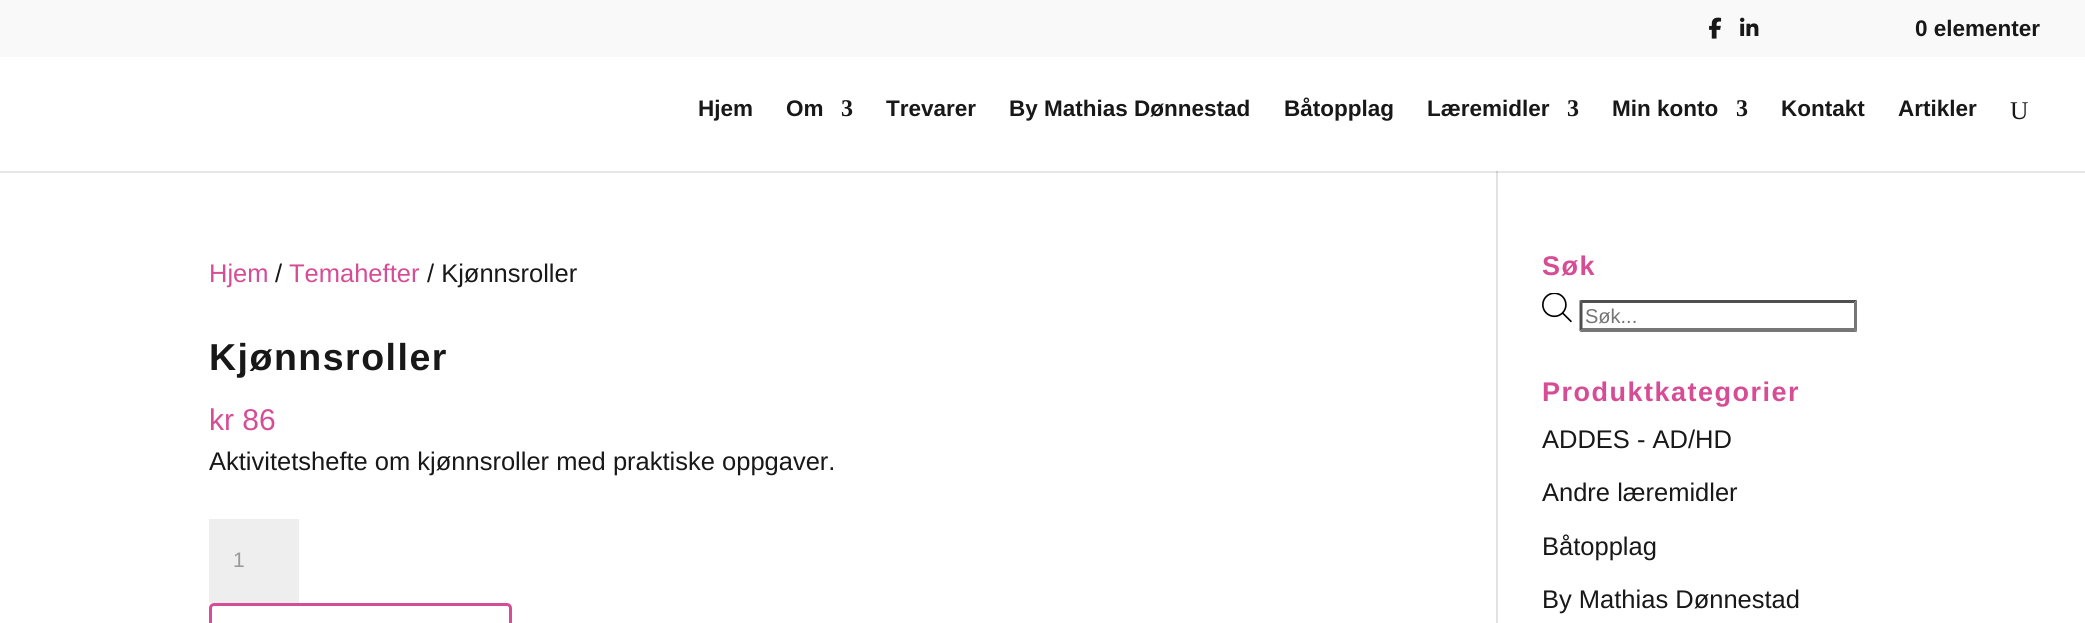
import math
import cairo

surface = cairo.ImageSurface(cairo.FORMAT_RGB24, 2085, 623)
ctx = cairo.Context(surface)
options = cairo.FontOptions()
options.set_hint_metrics(cairo.HINT_METRICS_OFF)
options.set_hint_style(cairo.HINT_STYLE_NONE)
ctx.set_font_options(options)
ctx.set_miter_limit(4)


def spaced_text(x, y, s, letter, word):
    ctx.move_to(x, y)
    for ch in s:
        ctx.show_text(ch)
        ctx.rel_move_to(letter + word * (ch == ' '), 0)


def round_rect(x, y, w, h, r):
    ctx.new_sub_path()
    for i, (u, v) in enumerate([(x + w - r, y + h - r), (x + r, y + h - r), (x + r, y + r), (x + w - r, y + r)]):
        ctx.arc(u, v, r, i * math.pi / 2, (i + 1) * math.pi / 2)
    ctx.close_path()


def picture(path, x, y, w, h):
    ctx.save()
    ctx.set_source_surface(cairo.ImageSurface.create_from_png(path), x, y)
    ctx.rectangle(x, y, w, h)
    ctx.fill()
    ctx.restore()


ctx.set_source_rgb(1, 1, 1)
ctx.paint()
ctx.set_source_rgb(0.902, 0.902, 0.902)
ctx.rectangle(0, 171, 2085, 2)
ctx.fill()
ctx.set_source_rgb(0.973, 0.973, 0.973)
ctx.rectangle(0, 0, 2085, 57)
ctx.fill()
picture("img1.png", 1709, 17, 13, 22)
picture("img2.png", 1740, 17, 19, 19)
ctx.select_font_face("Liberation Sans", cairo.FONT_SLANT_NORMAL, cairo.FONT_WEIGHT_BOLD)
ctx.set_font_size(22.5)
ctx.set_source_rgb(0.094, 0.094, 0.094)
ctx.move_to(1915, 36)
ctx.show_text("0 elementer")
ctx.set_source_rgb(0.886, 0.886, 0.886)
ctx.rectangle(1496, 167, 2, 456)
ctx.fill()
ctx.set_source_rgb(1, 1, 1)
ctx.rectangle(1496, 167, 2, 4)
ctx.fill()
ctx.set_source_rgb(0.094, 0.094, 0.094)
ctx.move_to(698, 116)
ctx.show_text("Hjem")
ctx.move_to(786, 116)
ctx.show_text("Om")
ctx.select_font_face("Liberation Serif", cairo.FONT_SLANT_NORMAL, cairo.FONT_WEIGHT_BOLD)
ctx.set_font_size(24)
ctx.move_to(841, 116)
ctx.show_text("3")
ctx.select_font_face("Liberation Sans", cairo.FONT_SLANT_NORMAL, cairo.FONT_WEIGHT_BOLD)
ctx.set_font_size(22.5)
ctx.move_to(886, 116)
ctx.show_text("Trevarer")
ctx.move_to(1009, 116)
ctx.show_text("By Mathias Dønnestad")
ctx.move_to(1284, 116)
ctx.show_text("Båtopplag")
ctx.move_to(1427, 116)
ctx.show_text("Læremidler")
ctx.select_font_face("Liberation Serif", cairo.FONT_SLANT_NORMAL, cairo.FONT_WEIGHT_BOLD)
ctx.set_font_size(24)
ctx.move_to(1567, 116)
ctx.show_text("3")
ctx.select_font_face("Liberation Sans", cairo.FONT_SLANT_NORMAL, cairo.FONT_WEIGHT_BOLD)
ctx.set_font_size(22.5)
ctx.move_to(1612, 116)
ctx.show_text("Min konto")
ctx.select_font_face("Liberation Serif", cairo.FONT_SLANT_NORMAL, cairo.FONT_WEIGHT_BOLD)
ctx.set_font_size(24)
ctx.move_to(1736, 116)
ctx.show_text("3")
ctx.select_font_face("Liberation Sans", cairo.FONT_SLANT_NORMAL, cairo.FONT_WEIGHT_BOLD)
ctx.set_font_size(22.5)
ctx.move_to(1781, 116)
ctx.show_text("Kontakt")
ctx.move_to(1898, 116)
ctx.show_text("Artikler")
ctx.select_font_face("Liberation Serif")
ctx.set_font_size(25.5)
ctx.move_to(2010, 119)
ctx.show_text("U")
ctx.set_source_rgb(0.796, 0.796, 0.796)
ctx.rectangle(1496, 171, 2, 2)
ctx.fill()
ctx.select_font_face("Liberation Sans")
ctx.set_source_rgb(0.839, 0.302, 0.584)
ctx.move_to(209, 282)
ctx.show_text("Hjem")
ctx.set_source_rgb(0.094, 0.094, 0.094)
ctx.move_to(275, 282)
ctx.show_text("/")
ctx.set_source_rgb(0.839, 0.302, 0.584)
ctx.move_to(289, 282)
ctx.show_text("Temahefter")
ctx.set_source_rgb(0.094, 0.094, 0.094)
ctx.move_to(427, 282)
ctx.show_text("/ Kjønnsroller")
ctx.select_font_face("Liberation Sans", cairo.FONT_SLANT_NORMAL, cairo.FONT_WEIGHT_BOLD)
ctx.set_font_size(37.5)
spaced_text(209, 370, "Kjønnsroller", 1.5, 0)
ctx.select_font_face("Liberation Sans")
ctx.set_font_size(30)
ctx.set_source_rgb(0.839, 0.302, 0.584)
ctx.move_to(209, 430)
ctx.show_text("kr 86")
ctx.set_font_size(25.5)
ctx.set_source_rgb(0.094, 0.094, 0.094)
ctx.move_to(209, 470)
ctx.show_text("Aktivitetshefte om kjønnsroller med praktiske oppgaver.")
ctx.set_source_rgb(0.933, 0.933, 0.933)
ctx.rectangle(209, 519, 90, 84)
ctx.fill()
ctx.set_font_size(21)
ctx.set_source_rgb(0.6, 0.6, 0.6)
ctx.move_to(233, 567)
ctx.show_text("1")
round_rect(210.5, 604.5, 300, 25, 3.5)
ctx.set_source_rgb(0.839, 0.302, 0.584)
ctx.set_line_width(3)
ctx.stroke()
ctx.select_font_face("Liberation Sans", cairo.FONT_SLANT_NORMAL, cairo.FONT_WEIGHT_BOLD)
ctx.set_font_size(27)
spaced_text(1542, 275, "Søk", 1.5, 0)
picture("img3.png", 1542, 293, 30, 30)
ctx.set_source_rgb(0.31, 0.31, 0.31)
ctx.new_path()
ctx.move_to(1580, 300)
ctx.line_to(1857, 300)
ctx.line_to(1854, 303)
ctx.line_to(1582, 303)
ctx.close_path()
ctx.fill()
ctx.set_source_rgb(0.463, 0.463, 0.463)
ctx.new_path()
ctx.move_to(1857, 300)
ctx.line_to(1857, 331.5)
ctx.line_to(1854, 328.5)
ctx.line_to(1854, 303)
ctx.close_path()
ctx.fill()
ctx.new_path()
ctx.move_to(1857, 332)
ctx.line_to(1580, 332)
ctx.line_to(1582, 328)
ctx.line_to(1854, 328)
ctx.close_path()
ctx.fill()
ctx.set_source_rgb(0.31, 0.31, 0.31)
ctx.new_path()
ctx.move_to(1579.5, 331.5)
ctx.line_to(1579.5, 300)
ctx.line_to(1582.5, 303)
ctx.line_to(1582.5, 328.5)
ctx.close_path()
ctx.fill()
ctx.select_font_face("Liberation Sans")
ctx.set_font_size(20)
ctx.set_source_rgb(0.459, 0.459, 0.459)
ctx.move_to(1585, 323)
ctx.show_text("Søk...")
ctx.select_font_face("Liberation Sans", cairo.FONT_SLANT_NORMAL, cairo.FONT_WEIGHT_BOLD)
ctx.set_font_size(27)
ctx.set_source_rgb(0.839, 0.302, 0.584)
spaced_text(1542, 401, "Produktkategorier", 1.5, 0)
ctx.select_font_face("Liberation Sans")
ctx.set_font_size(25.5)
ctx.set_source_rgb(0.094, 0.094, 0.094)
ctx.move_to(1542, 448)
ctx.show_text("ADDES - AD/HD")
ctx.move_to(1542, 501)
ctx.show_text("Andre læremidler")
ctx.move_to(1542, 555)
ctx.show_text("Båtopplag")
ctx.move_to(1542, 608)
ctx.show_text("By Mathias Dønnestad")
surface.write_to_png("page.png")
